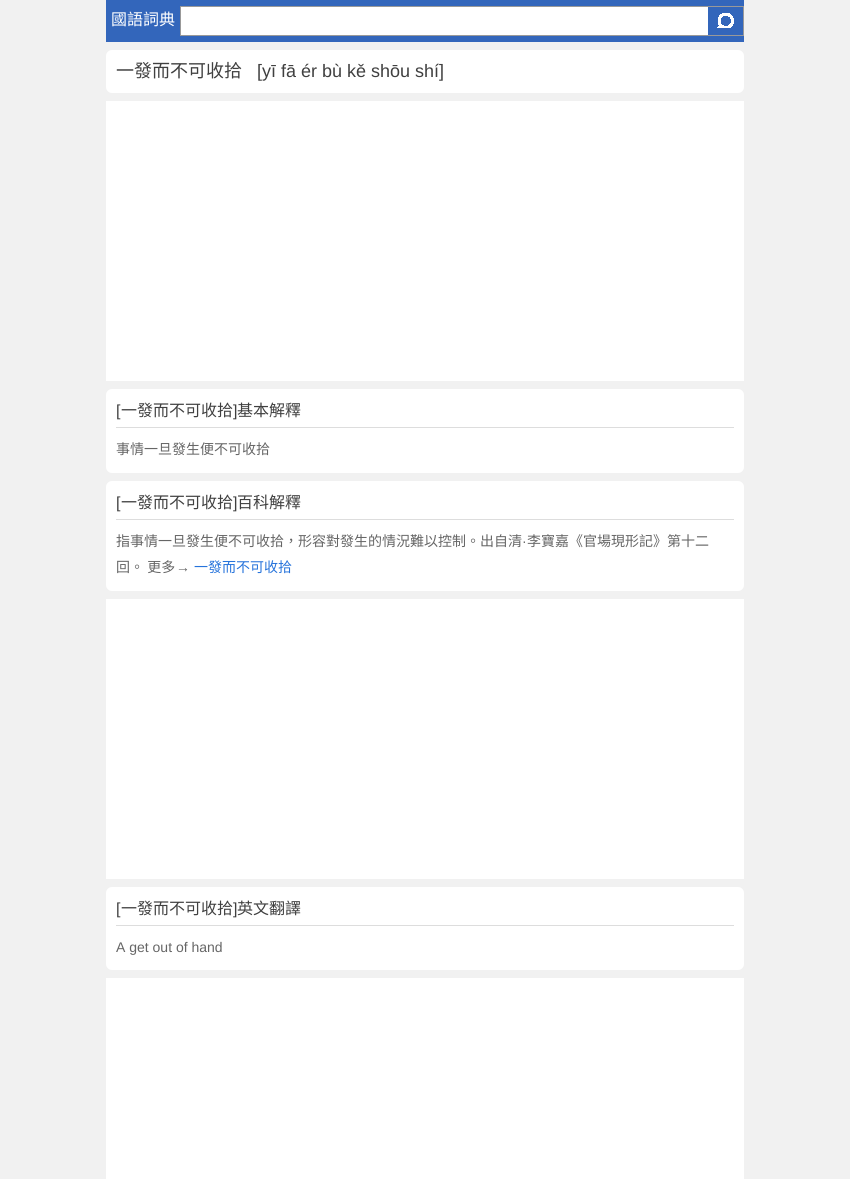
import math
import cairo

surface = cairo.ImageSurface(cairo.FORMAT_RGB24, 850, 1179)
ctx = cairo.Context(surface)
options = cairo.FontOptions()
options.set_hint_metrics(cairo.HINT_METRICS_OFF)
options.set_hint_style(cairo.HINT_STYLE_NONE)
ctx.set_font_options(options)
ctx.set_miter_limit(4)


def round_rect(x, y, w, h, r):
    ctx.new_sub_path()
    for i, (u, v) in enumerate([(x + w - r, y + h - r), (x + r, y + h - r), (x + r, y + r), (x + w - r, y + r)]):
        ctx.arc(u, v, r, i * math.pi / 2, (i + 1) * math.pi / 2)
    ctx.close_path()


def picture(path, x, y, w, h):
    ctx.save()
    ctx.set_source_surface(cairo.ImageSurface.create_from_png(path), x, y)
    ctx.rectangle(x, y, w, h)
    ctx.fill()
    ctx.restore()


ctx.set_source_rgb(0.945, 0.945, 0.945)
ctx.paint()
ctx.set_source_rgb(0.2, 0.4, 0.733)
ctx.rectangle(106, 0, 638, 42)
ctx.fill()
ctx.select_font_face("Noto Sans CJK TC")
ctx.set_font_size(16)
ctx.set_source_rgb(1, 1, 1)
ctx.move_to(111, 25)
ctx.show_text("國語詞典")
ctx.rectangle(181, 7, 527, 28)
ctx.fill()
ctx.rectangle(180.5, 6.5, 563, 29)
ctx.set_source_rgb(0.6, 0.6, 0.6)
ctx.set_line_width(1)
ctx.stroke()
picture("img1.png", 717, 13, 17, 15)
ctx.set_source_rgb(1, 1, 1)
round_rect(106, 50, 638, 43, 6)
ctx.fill()
ctx.set_font_size(18)
ctx.set_source_rgb(0.251, 0.251, 0.251)
ctx.move_to(116, 77)
ctx.show_text("一發而不可收拾")
ctx.select_font_face("Liberation Sans")
ctx.move_to(257, 77)
ctx.show_text("[yī fā ér bù kě shōu shí]")
ctx.set_source_rgb(1, 1, 1)
ctx.rectangle(106, 101, 638, 280)
ctx.fill()
round_rect(106, 389, 638, 84, 6)
ctx.fill()
ctx.set_source_rgb(0.867, 0.867, 0.867)
ctx.rectangle(116, 427, 618, 1)
ctx.fill()
ctx.set_font_size(16)
ctx.set_source_rgb(0.251, 0.251, 0.251)
ctx.move_to(116, 416)
ctx.show_text("[")
ctx.select_font_face("Noto Sans CJK TC")
ctx.move_to(121, 416)
ctx.show_text("一發而不可收拾")
ctx.select_font_face("Liberation Sans")
ctx.move_to(233, 416)
ctx.show_text("]")
ctx.select_font_face("Noto Sans CJK TC")
ctx.move_to(237, 416)
ctx.show_text("基本解釋")
ctx.set_font_size(14)
ctx.set_source_rgb(0.4, 0.4, 0.4)
ctx.move_to(116, 454)
ctx.show_text("事情一旦發生便不可收拾")
ctx.set_source_rgb(1, 1, 1)
round_rect(106, 481, 638, 110, 6)
ctx.fill()
ctx.set_source_rgb(0.867, 0.867, 0.867)
ctx.rectangle(116, 519, 618, 1)
ctx.fill()
ctx.select_font_face("Liberation Sans")
ctx.set_font_size(16)
ctx.set_source_rgb(0.251, 0.251, 0.251)
ctx.move_to(116, 508)
ctx.show_text("[")
ctx.select_font_face("Noto Sans CJK TC")
ctx.move_to(121, 508)
ctx.show_text("一發而不可收拾")
ctx.select_font_face("Liberation Sans")
ctx.move_to(233, 508)
ctx.show_text("]")
ctx.select_font_face("Noto Sans CJK TC")
ctx.move_to(237, 508)
ctx.show_text("百科解釋")
ctx.set_font_size(14)
ctx.set_source_rgb(0.4, 0.4, 0.4)
ctx.move_to(116, 546)
ctx.show_text("指事情一旦發生便不可收拾，形容對發生的情況難以控制。出自清")
ctx.select_font_face("Liberation Sans")
ctx.move_to(522, 546)
ctx.show_text("·")
ctx.select_font_face("Noto Sans CJK TC")
ctx.move_to(527, 546)
ctx.show_text("李寶嘉《官場現形記》第十二")
ctx.move_to(116, 572)
ctx.show_text("回。 更多")
ctx.select_font_face("Liberation Sans")
ctx.move_to(176, 572)
ctx.show_text("→")
ctx.select_font_face("Noto Sans CJK TC")
ctx.set_source_rgb(0.149, 0.451, 0.859)
ctx.move_to(194, 572)
ctx.show_text("一發而不可收拾")
ctx.set_source_rgb(1, 1, 1)
ctx.rectangle(106, 599, 638, 280)
ctx.fill()
round_rect(106, 887, 638, 83, 6)
ctx.fill()
ctx.set_source_rgb(0.867, 0.867, 0.867)
ctx.rectangle(116, 925, 618, 1)
ctx.fill()
ctx.select_font_face("Liberation Sans")
ctx.set_font_size(16)
ctx.set_source_rgb(0.251, 0.251, 0.251)
ctx.move_to(116, 914)
ctx.show_text("[")
ctx.select_font_face("Noto Sans CJK TC")
ctx.move_to(121, 914)
ctx.show_text("一發而不可收拾")
ctx.select_font_face("Liberation Sans")
ctx.move_to(233, 914)
ctx.show_text("]")
ctx.select_font_face("Noto Sans CJK TC")
ctx.move_to(237, 914)
ctx.show_text("英文翻譯")
ctx.select_font_face("Liberation Sans")
ctx.set_font_size(14)
ctx.set_source_rgb(0.4, 0.4, 0.4)
ctx.move_to(116, 952)
ctx.show_text("A get out of hand")
ctx.set_source_rgb(1, 1, 1)
ctx.rectangle(106, 978, 638, 201)
ctx.fill()
surface.write_to_png("page.png")
